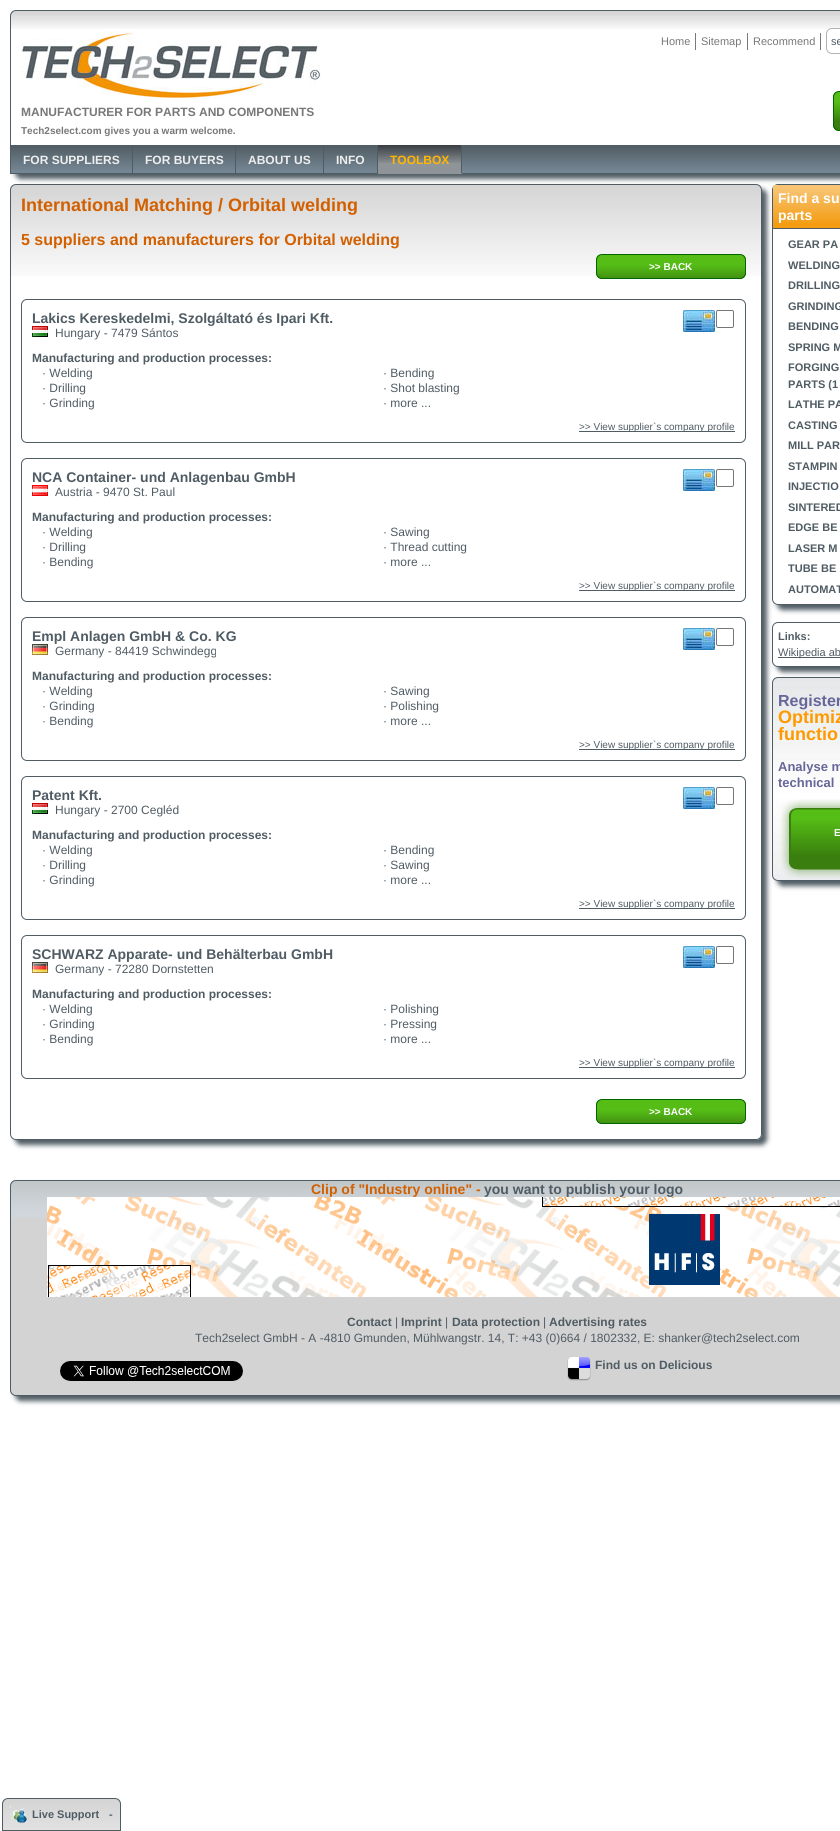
import math
import cairo

surface = cairo.ImageSurface(cairo.FORMAT_RGB24, 840, 1831)
ctx = cairo.Context(surface)
options = cairo.FontOptions()
options.set_hint_metrics(cairo.HINT_METRICS_OFF)
options.set_hint_style(cairo.HINT_STYLE_NONE)
ctx.set_font_options(options)
ctx.set_miter_limit(4)


def round_rect(x, y, w, h, r):
    ctx.new_sub_path()
    for i, (u, v) in enumerate([(x + w - r, y + h - r), (x + r, y + h - r), (x + r, y + r), (x + w - r, y + r)]):
        ctx.arc(u, v, r, i * math.pi / 2, (i + 1) * math.pi / 2)
    ctx.close_path()


def shadow(x, y, w, h, r, blur, alpha):
    ctx.push_group_with_content(cairo.CONTENT_ALPHA)
    ctx.set_operator(cairo.OPERATOR_SOURCE)
    for i in range(15, -16, -2):
        e = blur * i / 6
        if min(w, h) + 2 * e > 0:
            ctx.set_source_rgba(0, 0, 0, alpha * math.erfc((i - 1) / 8.5) / 2)
            round_rect(x - e, y - e, w + 2 * e, h + 2 * e, max(0, min(r + e + blur * .6, min(w, h) / 2 + e)))
            ctx.fill()
    ctx.mask(ctx.pop_group())


def picture(path, x, y, w, h):
    ctx.save()
    ctx.set_source_surface(cairo.ImageSurface.create_from_png(path), x, y)
    ctx.rectangle(x, y, w, h)
    ctx.fill()
    ctx.restore()


ctx.set_source_rgb(1, 1, 1)
ctx.paint()
ctx.save()
ctx.rectangle(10, 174, 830, 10)
ctx.clip()
ctx.set_source_rgb(0.314, 0.361, 0.392)
shadow(15, 15, 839, 164, 6, 2.5, 1)
ctx.restore()
picture("img1.png", 10, 11, 830, 18)
ctx.new_path()
ctx.move_to(16, 10.5)
ctx.line_to(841, 10.5)
ctx.curve_to(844, 10.5, 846.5, 13, 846.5, 16)
ctx.line_to(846.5, 173.5)
ctx.line_to(10.5, 173.5)
ctx.line_to(10.5, 16)
ctx.curve_to(10.5, 13, 13, 10.5, 16, 10.5)
ctx.close_path()
ctx.set_source_rgb(0.314, 0.361, 0.392)
ctx.set_line_width(1)
ctx.stroke()
ctx.set_source_rgb(0.471, 0.471, 0.471)
ctx.rectangle(695, 33, 1, 17)
ctx.fill()
ctx.select_font_face("Liberation Sans")
ctx.set_font_size(11)
ctx.move_to(661, 45)
ctx.show_text("Home")
ctx.rectangle(747, 33, 1, 17)
ctx.fill()
ctx.move_to(701, 45)
ctx.show_text("Sitemap")
ctx.rectangle(820, 33, 1, 17)
ctx.fill()
ctx.move_to(753, 45)
ctx.show_text("Recommend")
ctx.set_source_rgb(1, 1, 1)
round_rect(826.5, 28.5, 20, 25, 5.5)
ctx.fill_preserve()
ctx.set_source_rgb(0.702, 0.702, 0.702)
ctx.stroke()
ctx.set_source_rgb(0.314, 0.361, 0.392)
ctx.move_to(831, 45)
ctx.show_text("se")
picture("img2.png", 833, 92, 7, 39)
round_rect(833.5, 91.5, 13, 39, 5.5)
ctx.set_source_rgb(0, 0.392, 0)
ctx.stroke()
picture("img3.png", 21, 31, 300, 68)
ctx.select_font_face("Liberation Sans", cairo.FONT_SLANT_NORMAL, cairo.FONT_WEIGHT_BOLD)
ctx.set_font_size(12)
ctx.set_source_rgb(0.471, 0.471, 0.471)
ctx.move_to(21, 116)
ctx.show_text("MANUFACTURER FOR PARTS AND COMPONENTS")
ctx.set_font_size(10)
ctx.move_to(21, 134)
ctx.show_text("Tech2select.com gives you a warm welcome.")
picture("img4.png", 462, 145, 378, 28)
picture("img5.png", 11, 145, 121, 28)
ctx.set_source_rgb(0.314, 0.361, 0.392)
ctx.rectangle(132, 145, 1, 29)
ctx.fill()
ctx.set_font_size(12)
ctx.set_source_rgb(0.933, 0.933, 0.933)
ctx.move_to(23, 164)
ctx.show_text("FOR SUPPLIERS")
picture("img6.png", 133, 145, 102, 28)
ctx.set_source_rgb(0.314, 0.361, 0.392)
ctx.rectangle(235, 145, 1, 29)
ctx.fill()
ctx.set_source_rgb(0.933, 0.933, 0.933)
ctx.move_to(145, 164)
ctx.show_text("FOR BUYERS")
picture("img7.png", 236, 145, 87, 28)
ctx.set_source_rgb(0.314, 0.361, 0.392)
ctx.rectangle(323, 145, 1, 29)
ctx.fill()
ctx.set_source_rgb(0.933, 0.933, 0.933)
ctx.move_to(248, 164)
ctx.show_text("ABOUT US")
picture("img8.png", 324, 145, 53, 28)
ctx.set_source_rgb(0.314, 0.361, 0.392)
ctx.rectangle(377, 145, 1, 29)
ctx.fill()
ctx.set_source_rgb(0.933, 0.933, 0.933)
ctx.move_to(336, 164)
ctx.show_text("INFO")
ctx.set_source_rgb(0.561, 0.58, 0.596)
ctx.rectangle(378, 163, 83, 10)
ctx.fill()
picture("img9.png", 378, 145, 83, 18)
ctx.set_source_rgb(0.314, 0.361, 0.392)
ctx.rectangle(461, 145, 1, 29)
ctx.fill()
ctx.set_source_rgb(0.561, 0.58, 0.596)
ctx.rectangle(378, 173, 84, 1)
ctx.fill()
ctx.set_source_rgb(1, 0.718, 0)
ctx.move_to(390, 164)
ctx.show_text("TOOLBOX")
ctx.set_source_rgb(0.314, 0.361, 0.392)
shadow(15, 189, 752, 956, 6, 2.5, 1)
ctx.set_source_rgb(1, 1, 1)
round_rect(10, 184, 752, 956, 6)
ctx.fill()
picture("img10.png", 10, 185, 752, 91)
round_rect(10.5, 184.5, 751, 955, 5.5)
ctx.set_source_rgb(0.314, 0.361, 0.392)
ctx.stroke()
ctx.set_font_size(18)
ctx.set_source_rgb(0.824, 0.376, 0)
ctx.move_to(21, 211)
ctx.show_text("International Matching / Orbital welding")
ctx.set_font_size(16)
ctx.move_to(21, 245)
ctx.show_text("5 suppliers and manufacturers for Orbital welding")
picture("img11.png", 596, 255, 150, 24)
round_rect(596.5, 254.5, 149, 24, 5.5)
ctx.set_source_rgb(0, 0.392, 0)
ctx.stroke()
ctx.set_font_size(10)
ctx.set_source_rgb(1, 1, 1)
ctx.move_to(649, 270)
ctx.show_text(">> BACK")
round_rect(21.5, 299.5, 724, 143, 5.5)
ctx.set_source_rgb(0.314, 0.361, 0.392)
ctx.stroke()
ctx.set_font_size(14)
ctx.move_to(32, 323)
ctx.show_text("Lakics Kereskedelmi, Szolgáltató és Ipari Kft.")
picture("img12.png", 32, 326, 16, 11)
ctx.select_font_face("Liberation Sans")
ctx.set_font_size(12)
ctx.move_to(55, 337)
ctx.show_text("Hungary - 7479 Sántos")
picture("img13.png", 683, 310, 32, 22)
round_rect(716.5, 310.5, 17, 17, 1.5)
ctx.set_source_rgb(0.463, 0.463, 0.463)
ctx.stroke()
ctx.select_font_face("Liberation Sans", cairo.FONT_SLANT_NORMAL, cairo.FONT_WEIGHT_BOLD)
ctx.set_source_rgb(0.314, 0.361, 0.392)
ctx.move_to(32, 362)
ctx.show_text("Manufacturing and production processes:")
ctx.select_font_face("Liberation Sans")
ctx.move_to(42, 377)
ctx.show_text("· Welding")
ctx.move_to(42, 392)
ctx.show_text("· Drilling")
ctx.move_to(42, 407)
ctx.show_text("· Grinding")
ctx.move_to(383, 377)
ctx.show_text("· Bending")
ctx.move_to(383, 392)
ctx.show_text("· Shot blasting")
ctx.move_to(383, 407)
ctx.show_text("· more ...")
ctx.rectangle(579, 431, 156, 1)
ctx.fill()
ctx.set_font_size(10)
ctx.move_to(579, 430)
ctx.show_text(">> View supplier`s company profile")
round_rect(21.5, 458.5, 724, 143, 5.5)
ctx.stroke()
ctx.select_font_face("Liberation Sans", cairo.FONT_SLANT_NORMAL, cairo.FONT_WEIGHT_BOLD)
ctx.set_font_size(14)
ctx.move_to(32, 482)
ctx.show_text("NCA Container- und Anlagenbau GmbH")
picture("img14.png", 32, 485, 16, 11)
ctx.select_font_face("Liberation Sans")
ctx.set_font_size(12)
ctx.move_to(55, 496)
ctx.show_text("Austria - 9470 St. Paul")
picture("img13.png", 683, 469, 32, 22)
round_rect(716.5, 469.5, 17, 17, 1.5)
ctx.set_source_rgb(0.463, 0.463, 0.463)
ctx.stroke()
ctx.select_font_face("Liberation Sans", cairo.FONT_SLANT_NORMAL, cairo.FONT_WEIGHT_BOLD)
ctx.set_source_rgb(0.314, 0.361, 0.392)
ctx.move_to(32, 521)
ctx.show_text("Manufacturing and production processes:")
ctx.select_font_face("Liberation Sans")
ctx.move_to(42, 536)
ctx.show_text("· Welding")
ctx.move_to(42, 551)
ctx.show_text("· Drilling")
ctx.move_to(42, 566)
ctx.show_text("· Bending")
ctx.move_to(383, 536)
ctx.show_text("· Sawing")
ctx.move_to(383, 551)
ctx.show_text("· Thread cutting")
ctx.move_to(383, 566)
ctx.show_text("· more ...")
ctx.rectangle(579, 590, 156, 1)
ctx.fill()
ctx.set_font_size(10)
ctx.move_to(579, 589)
ctx.show_text(">> View supplier`s company profile")
round_rect(21.5, 617.5, 724, 143, 5.5)
ctx.stroke()
ctx.select_font_face("Liberation Sans", cairo.FONT_SLANT_NORMAL, cairo.FONT_WEIGHT_BOLD)
ctx.set_font_size(14)
ctx.move_to(32, 641)
ctx.show_text("Empl Anlagen GmbH & Co. KG")
picture("img15.png", 32, 644, 16, 11)
ctx.select_font_face("Liberation Sans")
ctx.set_font_size(12)
ctx.move_to(55, 655)
ctx.show_text("Germany - 84419 Schwindegg")
picture("img13.png", 683, 628, 32, 22)
round_rect(716.5, 628.5, 17, 17, 1.5)
ctx.set_source_rgb(0.463, 0.463, 0.463)
ctx.stroke()
ctx.select_font_face("Liberation Sans", cairo.FONT_SLANT_NORMAL, cairo.FONT_WEIGHT_BOLD)
ctx.set_source_rgb(0.314, 0.361, 0.392)
ctx.move_to(32, 680)
ctx.show_text("Manufacturing and production processes:")
ctx.select_font_face("Liberation Sans")
ctx.move_to(42, 695)
ctx.show_text("· Welding")
ctx.move_to(42, 710)
ctx.show_text("· Grinding")
ctx.move_to(42, 725)
ctx.show_text("· Bending")
ctx.move_to(383, 695)
ctx.show_text("· Sawing")
ctx.move_to(383, 710)
ctx.show_text("· Polishing")
ctx.move_to(383, 725)
ctx.show_text("· more ...")
ctx.rectangle(579, 749, 156, 1)
ctx.fill()
ctx.set_font_size(10)
ctx.move_to(579, 748)
ctx.show_text(">> View supplier`s company profile")
round_rect(21.5, 776.5, 724, 143, 5.5)
ctx.stroke()
ctx.select_font_face("Liberation Sans", cairo.FONT_SLANT_NORMAL, cairo.FONT_WEIGHT_BOLD)
ctx.set_font_size(14)
ctx.move_to(32, 800)
ctx.show_text("Patent Kft.")
picture("img12.png", 32, 803, 16, 11)
ctx.select_font_face("Liberation Sans")
ctx.set_font_size(12)
ctx.move_to(55, 814)
ctx.show_text("Hungary - 2700 Cegléd")
picture("img13.png", 683, 787, 32, 22)
round_rect(716.5, 787.5, 17, 17, 1.5)
ctx.set_source_rgb(0.463, 0.463, 0.463)
ctx.stroke()
ctx.select_font_face("Liberation Sans", cairo.FONT_SLANT_NORMAL, cairo.FONT_WEIGHT_BOLD)
ctx.set_source_rgb(0.314, 0.361, 0.392)
ctx.move_to(32, 839)
ctx.show_text("Manufacturing and production processes:")
ctx.select_font_face("Liberation Sans")
ctx.move_to(42, 854)
ctx.show_text("· Welding")
ctx.move_to(42, 869)
ctx.show_text("· Drilling")
ctx.move_to(42, 884)
ctx.show_text("· Grinding")
ctx.move_to(383, 854)
ctx.show_text("· Bending")
ctx.move_to(383, 869)
ctx.show_text("· Sawing")
ctx.move_to(383, 884)
ctx.show_text("· more ...")
ctx.rectangle(579, 908, 156, 1)
ctx.fill()
ctx.set_font_size(10)
ctx.move_to(579, 907)
ctx.show_text(">> View supplier`s company profile")
round_rect(21.5, 935.5, 724, 143, 5.5)
ctx.stroke()
ctx.select_font_face("Liberation Sans", cairo.FONT_SLANT_NORMAL, cairo.FONT_WEIGHT_BOLD)
ctx.set_font_size(14)
ctx.move_to(32, 959)
ctx.show_text("SCHWARZ Apparate- und Behälterbau GmbH")
picture("img15.png", 32, 962, 16, 11)
ctx.select_font_face("Liberation Sans")
ctx.set_font_size(12)
ctx.move_to(55, 973)
ctx.show_text("Germany - 72280 Dornstetten")
picture("img13.png", 683, 946, 32, 22)
round_rect(716.5, 946.5, 17, 17, 1.5)
ctx.set_source_rgb(0.463, 0.463, 0.463)
ctx.stroke()
ctx.select_font_face("Liberation Sans", cairo.FONT_SLANT_NORMAL, cairo.FONT_WEIGHT_BOLD)
ctx.set_source_rgb(0.314, 0.361, 0.392)
ctx.move_to(32, 998)
ctx.show_text("Manufacturing and production processes:")
ctx.select_font_face("Liberation Sans")
ctx.move_to(42, 1013)
ctx.show_text("· Welding")
ctx.move_to(42, 1028)
ctx.show_text("· Grinding")
ctx.move_to(42, 1043)
ctx.show_text("· Bending")
ctx.move_to(383, 1013)
ctx.show_text("· Polishing")
ctx.move_to(383, 1028)
ctx.show_text("· Pressing")
ctx.move_to(383, 1043)
ctx.show_text("· more ...")
ctx.rectangle(579, 1067, 156, 1)
ctx.fill()
ctx.set_font_size(10)
ctx.move_to(579, 1066)
ctx.show_text(">> View supplier`s company profile")
picture("img16.png", 596, 1100, 150, 24)
round_rect(596.5, 1099.5, 149, 24, 5.5)
ctx.set_source_rgb(0, 0.392, 0)
ctx.stroke()
ctx.select_font_face("Liberation Sans", cairo.FONT_SLANT_NORMAL, cairo.FONT_WEIGHT_BOLD)
ctx.set_source_rgb(1, 1, 1)
ctx.move_to(649, 1115)
ctx.show_text(">> BACK")
ctx.save()
ctx.set_fill_rule(cairo.FILL_RULE_EVEN_ODD)
ctx.new_path()
ctx.move_to(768, 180)
ctx.line_to(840, 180)
ctx.line_to(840, 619)
ctx.line_to(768, 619)
ctx.close_path()
ctx.move_to(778, 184)
ctx.line_to(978, 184)
ctx.curve_to(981.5, 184, 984, 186.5, 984, 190)
ctx.line_to(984, 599)
ctx.curve_to(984, 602.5, 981.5, 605, 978, 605)
ctx.line_to(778, 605)
ctx.curve_to(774.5, 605, 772, 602.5, 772, 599)
ctx.line_to(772, 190)
ctx.curve_to(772, 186.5, 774.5, 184, 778, 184)
ctx.close_path()
ctx.clip()
ctx.set_source_rgb(0.314, 0.361, 0.392)
shadow(777, 189, 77, 421, 6, 2.5, 1)
ctx.restore()
round_rect(772.5, 184.5, 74, 420, 5.5)
ctx.set_source_rgb(0.314, 0.361, 0.392)
ctx.stroke()
ctx.set_source_rgb(0.957, 0.616, 0.078)
ctx.rectangle(773, 223, 67, 5)
ctx.fill()
picture("img17.png", 773, 185, 67, 38)
ctx.set_font_size(14)
ctx.set_source_rgb(1, 1, 1)
ctx.move_to(778, 203)
ctx.show_text("Find a su")
ctx.move_to(778, 220)
ctx.show_text("parts")
ctx.set_source_rgb(0.314, 0.361, 0.392)
ctx.rectangle(773, 228, 67, 1)
ctx.fill()
ctx.set_font_size(11)
ctx.move_to(788, 248)
ctx.show_text("GEAR PA")
ctx.move_to(788, 269)
ctx.show_text("WELDING")
ctx.move_to(788, 289)
ctx.show_text("DRILLING")
ctx.move_to(788, 310)
ctx.show_text("GRINDING")
ctx.move_to(788, 330)
ctx.show_text("BENDING")
ctx.move_to(788, 351)
ctx.show_text("SPRING M")
ctx.move_to(788, 371)
ctx.show_text("FORGING")
ctx.move_to(788, 388)
ctx.show_text("PARTS (1")
ctx.move_to(788, 408)
ctx.show_text("LATHE PA")
ctx.move_to(788, 429)
ctx.show_text("CASTING")
ctx.move_to(788, 449)
ctx.show_text("MILL PAR")
ctx.move_to(788, 470)
ctx.show_text("STAMPIN")
ctx.move_to(788, 490)
ctx.show_text("INJECTIO")
ctx.move_to(788, 511)
ctx.show_text("SINTERED")
ctx.move_to(788, 531)
ctx.show_text("EDGE BE")
ctx.move_to(788, 552)
ctx.show_text("LASER M")
ctx.move_to(788, 572)
ctx.show_text("TUBE BE")
ctx.move_to(788, 593)
ctx.show_text("AUTOMAT")
ctx.save()
ctx.set_fill_rule(cairo.FILL_RULE_EVEN_ODD)
ctx.new_path()
ctx.move_to(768, 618)
ctx.line_to(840, 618)
ctx.line_to(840, 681)
ctx.line_to(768, 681)
ctx.close_path()
ctx.move_to(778, 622)
ctx.line_to(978, 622)
ctx.curve_to(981.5, 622, 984, 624.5, 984, 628)
ctx.line_to(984, 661)
ctx.curve_to(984, 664.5, 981.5, 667, 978, 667)
ctx.line_to(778, 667)
ctx.curve_to(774.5, 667, 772, 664.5, 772, 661)
ctx.line_to(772, 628)
ctx.curve_to(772, 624.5, 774.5, 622, 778, 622)
ctx.close_path()
ctx.clip()
ctx.set_source_rgb(0.314, 0.361, 0.392)
shadow(777, 627, 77, 45, 6, 2.5, 1)
ctx.restore()
round_rect(772.5, 622.5, 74, 44, 5.5)
ctx.stroke()
ctx.move_to(778, 640)
ctx.show_text("Links:")
ctx.rectangle(778, 657, 62, 1)
ctx.fill()
ctx.select_font_face("Liberation Sans")
ctx.move_to(778, 656)
ctx.show_text("Wikipedia ab")
ctx.set_source_rgb(0.314, 0.361, 0.392)
shadow(777, 682, 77, 204, 6, 2.5, 1)
picture("img18.png", 772, 678, 68, 203)
round_rect(772.5, 677.5, 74, 203, 5.5)
ctx.set_source_rgb(0.314, 0.361, 0.392)
ctx.stroke()
ctx.select_font_face("Liberation Sans", cairo.FONT_SLANT_NORMAL, cairo.FONT_WEIGHT_BOLD)
ctx.set_font_size(16)
ctx.set_source_rgb(0.4, 0.4, 0.6)
ctx.move_to(778, 706)
ctx.show_text("Register")
ctx.set_font_size(18)
ctx.set_source_rgb(1, 0.6, 0)
ctx.move_to(778, 723)
ctx.show_text("Optimiz")
ctx.move_to(778, 740)
ctx.show_text("functio")
ctx.set_font_size(13)
ctx.set_source_rgb(0.4, 0.4, 0.6)
ctx.move_to(778, 771)
ctx.show_text("Analyse m")
ctx.move_to(778, 787)
ctx.show_text("technical")
picture("img19.png", 780, 800, 18, 78)
picture("img20.png", 798, 799, 42, 80)
ctx.set_font_size(10)
ctx.set_source_rgb(1, 1, 1)
ctx.move_to(834, 836)
ctx.show_text("E")
ctx.set_source_rgb(0.314, 0.361, 0.392)
shadow(15, 1185, 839, 216, 6, 2.5, 1)
ctx.set_source_rgb(0.827, 0.827, 0.827)
round_rect(10, 1180, 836, 216, 6)
ctx.fill()
picture("img21.png", 10, 1181, 830, 37)
round_rect(10.5, 1180.5, 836, 215, 5.5)
ctx.set_source_rgb(0.314, 0.361, 0.392)
ctx.stroke()
ctx.set_font_size(14)
ctx.set_source_rgb(0.824, 0.376, 0)
ctx.move_to(311, 1194)
ctx.show_text("Clip of \"Industry online\" -")
ctx.set_source_rgb(0.314, 0.361, 0.392)
ctx.move_to(484, 1194)
ctx.show_text("you want to publish your logo")
picture("img22.png", 47, 1197, 793, 100)
ctx.set_font_size(12)
ctx.move_to(347, 1326)
ctx.show_text("Contact")
ctx.select_font_face("Liberation Sans")
ctx.move_to(395, 1326)
ctx.show_text("|")
ctx.select_font_face("Liberation Sans", cairo.FONT_SLANT_NORMAL, cairo.FONT_WEIGHT_BOLD)
ctx.move_to(401, 1326)
ctx.show_text("Imprint")
ctx.select_font_face("Liberation Sans")
ctx.move_to(445, 1326)
ctx.show_text("|")
ctx.select_font_face("Liberation Sans", cairo.FONT_SLANT_NORMAL, cairo.FONT_WEIGHT_BOLD)
ctx.move_to(452, 1326)
ctx.show_text("Data protection")
ctx.select_font_face("Liberation Sans")
ctx.move_to(543, 1326)
ctx.show_text("|")
ctx.select_font_face("Liberation Sans", cairo.FONT_SLANT_NORMAL, cairo.FONT_WEIGHT_BOLD)
ctx.move_to(549, 1326)
ctx.show_text("Advertising rates")
ctx.select_font_face("Liberation Sans")
ctx.move_to(195, 1342)
ctx.show_text("Tech2select GmbH - A -4810 Gmunden, Mühlwangstr. 14, T: +43 (0)664 / 1802332, E: shanker@tech2select.com")
picture("img23.png", 60, 1361, 183, 20)
picture("img24.png", 567, 1357, 24, 24)
ctx.select_font_face("Liberation Sans", cairo.FONT_SLANT_NORMAL, cairo.FONT_WEIGHT_BOLD)
ctx.move_to(595, 1369)
ctx.show_text("Find us on Delicious")
picture("img25.png", 2, 1799, 119, 31)
ctx.new_path()
ctx.move_to(8, 1798.5)
ctx.line_to(115, 1798.5)
ctx.curve_to(118, 1798.5, 120.5, 1801, 120.5, 1804)
ctx.line_to(120.5, 1830.5)
ctx.line_to(2.5, 1830.5)
ctx.line_to(2.5, 1804)
ctx.curve_to(2.5, 1801, 5, 1798.5, 8, 1798.5)
ctx.close_path()
ctx.stroke()
picture("img26.png", 10, 1806, 17, 17)
ctx.set_font_size(11)
ctx.move_to(32, 1818)
ctx.show_text("Live Support")
ctx.move_to(109, 1818)
ctx.show_text("-")
surface.write_to_png("page.png")
